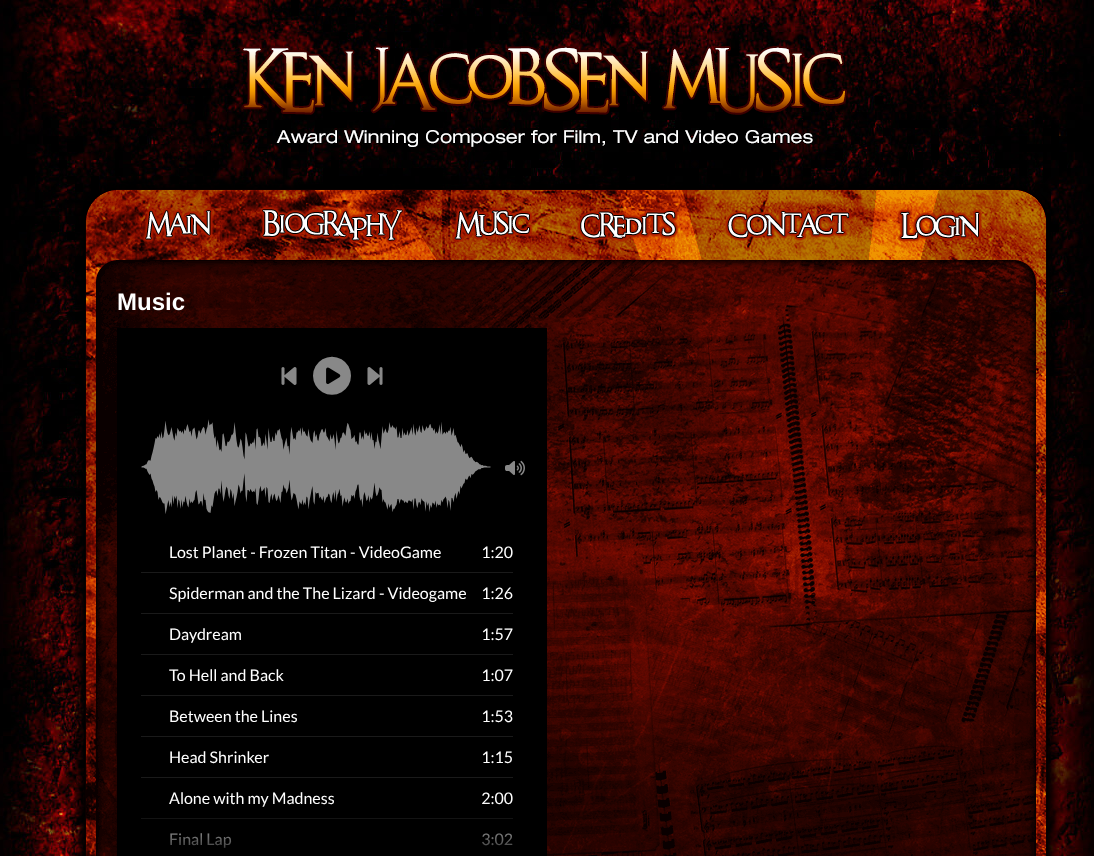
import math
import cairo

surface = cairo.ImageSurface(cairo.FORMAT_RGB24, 1094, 856)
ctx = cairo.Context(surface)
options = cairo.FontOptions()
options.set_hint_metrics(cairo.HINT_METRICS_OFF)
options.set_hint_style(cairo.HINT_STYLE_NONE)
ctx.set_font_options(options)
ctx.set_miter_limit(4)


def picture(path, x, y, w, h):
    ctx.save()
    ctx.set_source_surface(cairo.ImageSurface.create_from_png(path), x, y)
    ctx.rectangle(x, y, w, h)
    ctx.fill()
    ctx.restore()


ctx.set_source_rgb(1, 1, 1)
ctx.paint()
picture("img1.png", 0, 0, 1094, 856)
picture("img2.png", 241, 45, 610, 103)
picture("img3.png", 69, 173, 994, 683)
picture("img4.png", 142, 207, 72, 36)
picture("img5.png", 259, 206, 147, 38)
picture("img6.png", 452, 207, 81, 36)
picture("img7.png", 577, 208, 102, 34)
picture("img8.png", 724, 208, 128, 34)
picture("img9.png", 897, 209, 86, 34)
ctx.select_font_face("Liberation Sans", cairo.FONT_SLANT_NORMAL, cairo.FONT_WEIGHT_BOLD)
ctx.set_font_size(24)
ctx.set_source_rgb(1, 1, 1)
ctx.move_to(117, 310)
ctx.show_text("Music")
picture("img10.png", 117, 328, 430, 528)
surface.write_to_png("page.png")
